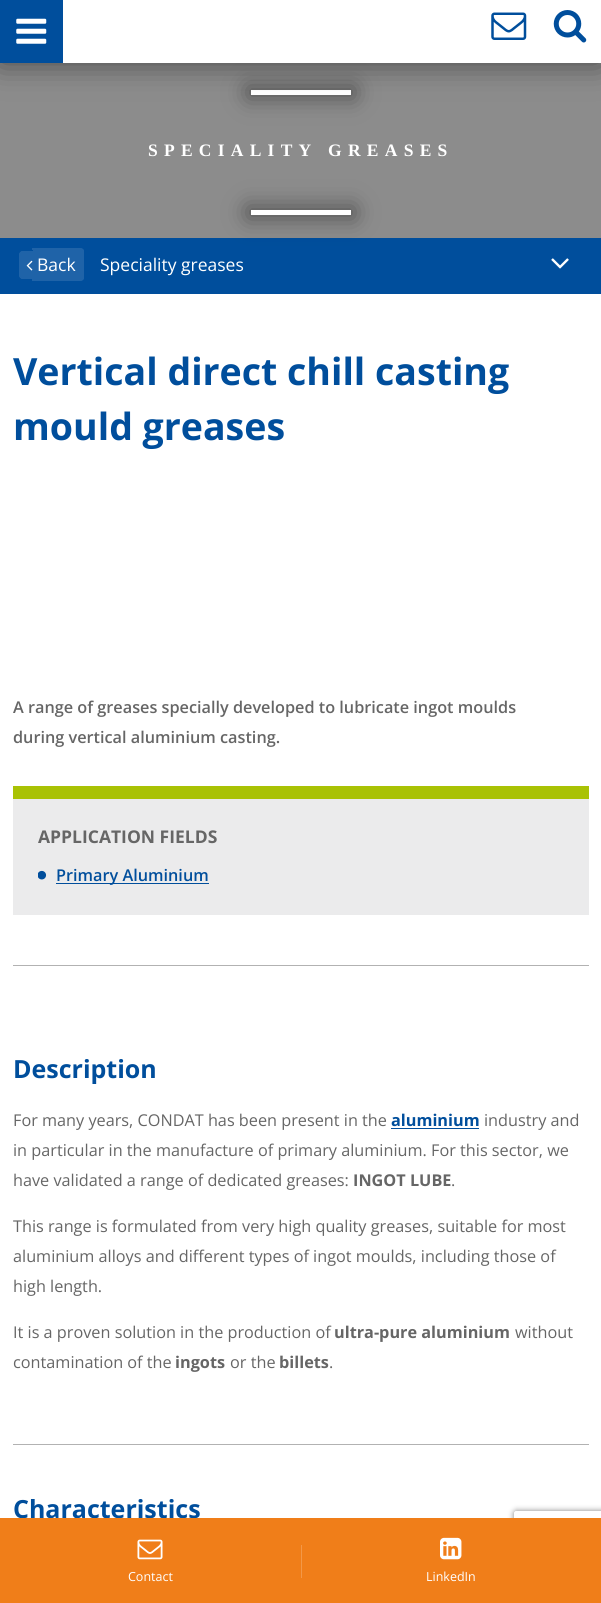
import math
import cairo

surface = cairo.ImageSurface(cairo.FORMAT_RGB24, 601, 1603)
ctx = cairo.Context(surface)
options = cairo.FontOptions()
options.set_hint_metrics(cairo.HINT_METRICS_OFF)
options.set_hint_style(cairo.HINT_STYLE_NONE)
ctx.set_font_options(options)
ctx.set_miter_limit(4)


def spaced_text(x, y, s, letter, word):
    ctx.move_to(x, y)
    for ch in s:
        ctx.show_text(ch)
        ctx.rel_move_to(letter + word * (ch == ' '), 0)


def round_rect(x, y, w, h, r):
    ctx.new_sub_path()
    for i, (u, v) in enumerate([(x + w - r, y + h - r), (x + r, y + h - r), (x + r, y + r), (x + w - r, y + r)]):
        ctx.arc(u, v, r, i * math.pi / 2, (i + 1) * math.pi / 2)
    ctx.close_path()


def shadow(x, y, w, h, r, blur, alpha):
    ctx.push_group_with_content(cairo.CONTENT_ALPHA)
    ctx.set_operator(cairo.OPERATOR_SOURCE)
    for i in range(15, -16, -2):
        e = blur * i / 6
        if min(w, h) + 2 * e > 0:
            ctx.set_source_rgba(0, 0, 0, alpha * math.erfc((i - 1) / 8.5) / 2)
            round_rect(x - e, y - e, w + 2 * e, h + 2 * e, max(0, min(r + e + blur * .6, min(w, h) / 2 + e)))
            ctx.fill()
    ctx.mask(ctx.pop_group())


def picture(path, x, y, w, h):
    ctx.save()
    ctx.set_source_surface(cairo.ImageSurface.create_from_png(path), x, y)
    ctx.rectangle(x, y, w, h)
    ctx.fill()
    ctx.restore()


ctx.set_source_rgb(1, 1, 1)
ctx.paint()
ctx.set_source_rgb(0.549, 0.549, 0.549)
ctx.rectangle(0, 63, 601, 175)
ctx.fill()
ctx.set_source_rgb(0, 0, 0)
shadow(251, 90, 100, 5, 0, 12.5, 0.5)
ctx.set_source_rgb(1, 1, 1)
ctx.rectangle(251, 90, 100, 5)
ctx.fill()
ctx.set_source_rgb(0, 0, 0)
shadow(0, 0, 601, 63, 0, 15.5, 0.5)
ctx.set_source_rgb(1, 1, 1)
ctx.rectangle(63, 0, 538, 63)
ctx.fill()
ctx.set_source_rgb(0, 0.306, 0.612)
ctx.rectangle(0, 0, 63, 63)
ctx.fill()
picture("img1.png", 16, 18, 31, 26)
picture("img2.png", 491, 12, 36, 28)
picture("img3.png", 553, 10, 34, 33)
ctx.rectangle(0, 238, 601, 56)
ctx.fill()
ctx.set_source_rgb(0, 0, 0)
shadow(251, 210, 100, 5, 0, 12.5, 0.5)
ctx.set_source_rgb(1, 1, 1)
ctx.rectangle(251, 210, 100, 5)
ctx.fill()
ctx.select_font_face("Liberation Serif", cairo.FONT_SLANT_NORMAL, cairo.FONT_WEIGHT_BOLD)
ctx.set_font_size(17.5)
spaced_text(148, 156, "SPECIALITY GREASES", 6.25, 0)
ctx.set_source_rgb(0.122, 0.388, 0.659)
ctx.new_path()
ctx.move_to(23, 251)
ctx.line_to(33, 251)
ctx.line_to(33, 279)
ctx.line_to(23, 279)
ctx.curve_to(21, 279, 19, 277, 19, 275)
ctx.line_to(19, 255)
ctx.curve_to(19, 253, 21, 251, 23, 251)
ctx.close_path()
ctx.fill()
ctx.set_fill_rule(cairo.FILL_RULE_EVEN_ODD)
ctx.new_path()
ctx.move_to(22.5, 251)
ctx.line_to(32.5, 251)
ctx.line_to(32.5, 279)
ctx.line_to(22.5, 279)
ctx.curve_to(20.5, 279, 19, 277, 19, 275)
ctx.line_to(19, 255)
ctx.curve_to(19, 253, 20.5, 251, 22.5, 251)
ctx.close_path()
ctx.move_to(22.5, 254)
ctx.line_to(32.5, 254)
ctx.line_to(32.5, 276)
ctx.line_to(22.5, 276)
ctx.curve_to(22, 276, 21, 275.5, 21, 275)
ctx.line_to(21, 255)
ctx.curve_to(21, 254.5, 22, 254, 22.5, 254)
ctx.close_path()
ctx.fill()
ctx.new_path()
ctx.move_to(33, 248)
ctx.line_to(80, 248)
ctx.curve_to(82, 248, 84, 250, 84, 252)
ctx.line_to(84, 277)
ctx.curve_to(84, 279, 82, 281, 80, 281)
ctx.line_to(33, 281)
ctx.close_path()
ctx.fill()
ctx.new_path()
ctx.move_to(32, 248)
ctx.line_to(80, 248)
ctx.curve_to(82, 248, 84, 249, 84, 251)
ctx.line_to(84, 278)
ctx.curve_to(84, 280, 82, 281, 80, 281)
ctx.line_to(32, 281)
ctx.close_path()
ctx.move_to(32, 250)
ctx.line_to(80, 250)
ctx.curve_to(81, 250, 81, 251, 81, 251)
ctx.line_to(81, 278)
ctx.curve_to(81, 278, 81, 279, 80, 279)
ctx.line_to(32, 279)
ctx.close_path()
ctx.fill()
picture("img4.png", 26, 260, 7, 11)
ctx.select_font_face("Open Sans")
ctx.set_source_rgb(1, 1, 1)
ctx.move_to(37, 271)
ctx.show_text("Back")
ctx.move_to(100, 271)
ctx.show_text("Speciality greases")
picture("img5.png", 551, 258, 18, 11)
ctx.select_font_face("Open Sans", cairo.FONT_SLANT_NORMAL, cairo.FONT_WEIGHT_BOLD)
ctx.set_font_size(37.5)
ctx.set_source_rgb(0, 0.306, 0.612)
ctx.move_to(13, 385)
ctx.show_text("Vertical direct chill casting")
ctx.move_to(13, 440)
ctx.show_text("mould greases")
ctx.set_source_rgb(0.698, 0.698, 0.698)
ctx.rectangle(13, 965, 576, 1)
ctx.fill()
ctx.select_font_face("Open Sans SemiBold")
ctx.set_font_size(16.25)
ctx.set_source_rgb(0.4, 0.4, 0.4)
ctx.move_to(13, 713)
ctx.show_text("A range of greases specially developed to lubricate ingot moulds")
ctx.move_to(13, 743)
ctx.show_text("during vertical aluminium casting.")
ctx.set_source_rgb(0.918, 0.918, 0.922)
ctx.rectangle(13, 799, 576, 116)
ctx.fill()
ctx.set_source_rgb(0.663, 0.761, 0.02)
ctx.rectangle(13, 786, 576, 13)
ctx.fill()
ctx.select_font_face("Open Sans", cairo.FONT_SLANT_NORMAL, cairo.FONT_WEIGHT_BOLD)
ctx.set_font_size(17.5)
ctx.set_source_rgb(0.4, 0.4, 0.4)
ctx.move_to(38, 843)
ctx.show_text("APPLICATION FIELDS")
picture("img6.png", 38, 870, 9, 10)
ctx.set_source_rgb(0, 0.306, 0.612)
ctx.rectangle(56, 883, 153, 1)
ctx.fill()
ctx.select_font_face("Open Sans SemiBold")
ctx.set_font_size(16.25)
ctx.move_to(56, 881)
ctx.show_text("Primary Aluminium")
ctx.set_source_rgb(0.698, 0.698, 0.698)
ctx.rectangle(13, 1444, 576, 1)
ctx.fill()
ctx.select_font_face("Open Sans", cairo.FONT_SLANT_NORMAL, cairo.FONT_WEIGHT_BOLD)
ctx.set_font_size(25)
ctx.set_source_rgb(0, 0.306, 0.612)
ctx.move_to(13, 1078)
ctx.show_text("Description")
ctx.select_font_face("Open Sans")
ctx.set_font_size(16.25)
ctx.set_source_rgb(0.4, 0.4, 0.4)
ctx.move_to(13, 1126)
ctx.show_text("For many years, CONDAT has been present in the")
ctx.select_font_face("Open Sans", cairo.FONT_SLANT_NORMAL, cairo.FONT_WEIGHT_BOLD)
ctx.set_source_rgb(0, 0.306, 0.612)
ctx.move_to(391, 1126)
ctx.show_text("aluminium")
ctx.rectangle(391, 1128, 88, 1)
ctx.fill()
ctx.select_font_face("Open Sans")
ctx.set_source_rgb(0.4, 0.4, 0.4)
ctx.move_to(484, 1126)
ctx.show_text("industry and")
ctx.move_to(13, 1156)
ctx.show_text("in particular in the manufacture of primary aluminium. For this sector, we")
ctx.move_to(13, 1186)
ctx.show_text("have validated a range of dedicated greases:")
ctx.select_font_face("Open Sans", cairo.FONT_SLANT_NORMAL, cairo.FONT_WEIGHT_BOLD)
ctx.move_to(353, 1186)
ctx.show_text("INGOT LUBE")
ctx.select_font_face("Open Sans")
ctx.move_to(451, 1186)
ctx.show_text(".")
ctx.move_to(13, 1232)
ctx.show_text("This range is formulated from very high quality greases, suitable for most")
ctx.move_to(13, 1262)
ctx.show_text("aluminium alloys and different types of ingot moulds, including those of")
ctx.move_to(13, 1292)
ctx.show_text("high length.")
ctx.move_to(13, 1338)
ctx.show_text("It is a proven solution in the production of")
ctx.select_font_face("Open Sans", cairo.FONT_SLANT_NORMAL, cairo.FONT_WEIGHT_BOLD)
ctx.move_to(334, 1338)
ctx.show_text("ultra-pure aluminium")
ctx.select_font_face("Open Sans")
ctx.move_to(515, 1338)
ctx.show_text("without")
ctx.move_to(13, 1368)
ctx.show_text("contamination of the")
ctx.select_font_face("Open Sans", cairo.FONT_SLANT_NORMAL, cairo.FONT_WEIGHT_BOLD)
ctx.move_to(175, 1368)
ctx.show_text("ingots")
ctx.select_font_face("Open Sans")
ctx.move_to(230, 1368)
ctx.show_text("or the")
ctx.select_font_face("Open Sans", cairo.FONT_SLANT_NORMAL, cairo.FONT_WEIGHT_BOLD)
ctx.move_to(279, 1368)
ctx.show_text("billets")
ctx.select_font_face("Open Sans")
ctx.move_to(329, 1368)
ctx.show_text(".")
ctx.select_font_face("Open Sans", cairo.FONT_SLANT_NORMAL, cairo.FONT_WEIGHT_BOLD)
ctx.set_font_size(25)
ctx.set_source_rgb(0, 0.306, 0.612)
ctx.move_to(13, 1518)
ctx.show_text("Characteristics")
ctx.save()
ctx.new_path()
ctx.move_to(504, 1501)
ctx.line_to(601, 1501)
ctx.line_to(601, 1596)
ctx.line_to(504, 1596)
ctx.close_path()
ctx.move_to(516.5, 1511)
ctx.line_to(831.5, 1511)
ctx.curve_to(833, 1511, 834, 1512, 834, 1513.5)
ctx.line_to(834, 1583.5)
ctx.curve_to(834, 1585, 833, 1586, 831.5, 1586)
ctx.line_to(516.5, 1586)
ctx.curve_to(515, 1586, 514, 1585, 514, 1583.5)
ctx.line_to(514, 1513.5)
ctx.curve_to(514, 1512, 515, 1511, 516.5, 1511)
ctx.close_path()
ctx.clip()
ctx.set_source_rgb(0.502, 0.502, 0.502)
shadow(514, 1511, 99, 75, 2.5, 3, 1)
ctx.restore()
ctx.set_source_rgb(0.941, 0.494, 0.098)
ctx.rectangle(0, 1518, 601, 85)
ctx.fill()
picture("img7.png", 137, 1539, 26, 21)
ctx.select_font_face("Open Sans")
ctx.set_font_size(12.5)
ctx.set_source_rgb(1, 1, 1)
ctx.move_to(128, 1581)
ctx.show_text("Contact")
ctx.set_source_rgb(0.953, 0.596, 0.278)
ctx.rectangle(301, 1545, 1, 33)
ctx.fill()
picture("img8.png", 440, 1537, 22, 23)
ctx.set_source_rgb(1, 1, 1)
ctx.move_to(426, 1581)
ctx.show_text("LinkedIn")
surface.write_to_png("page.png")
